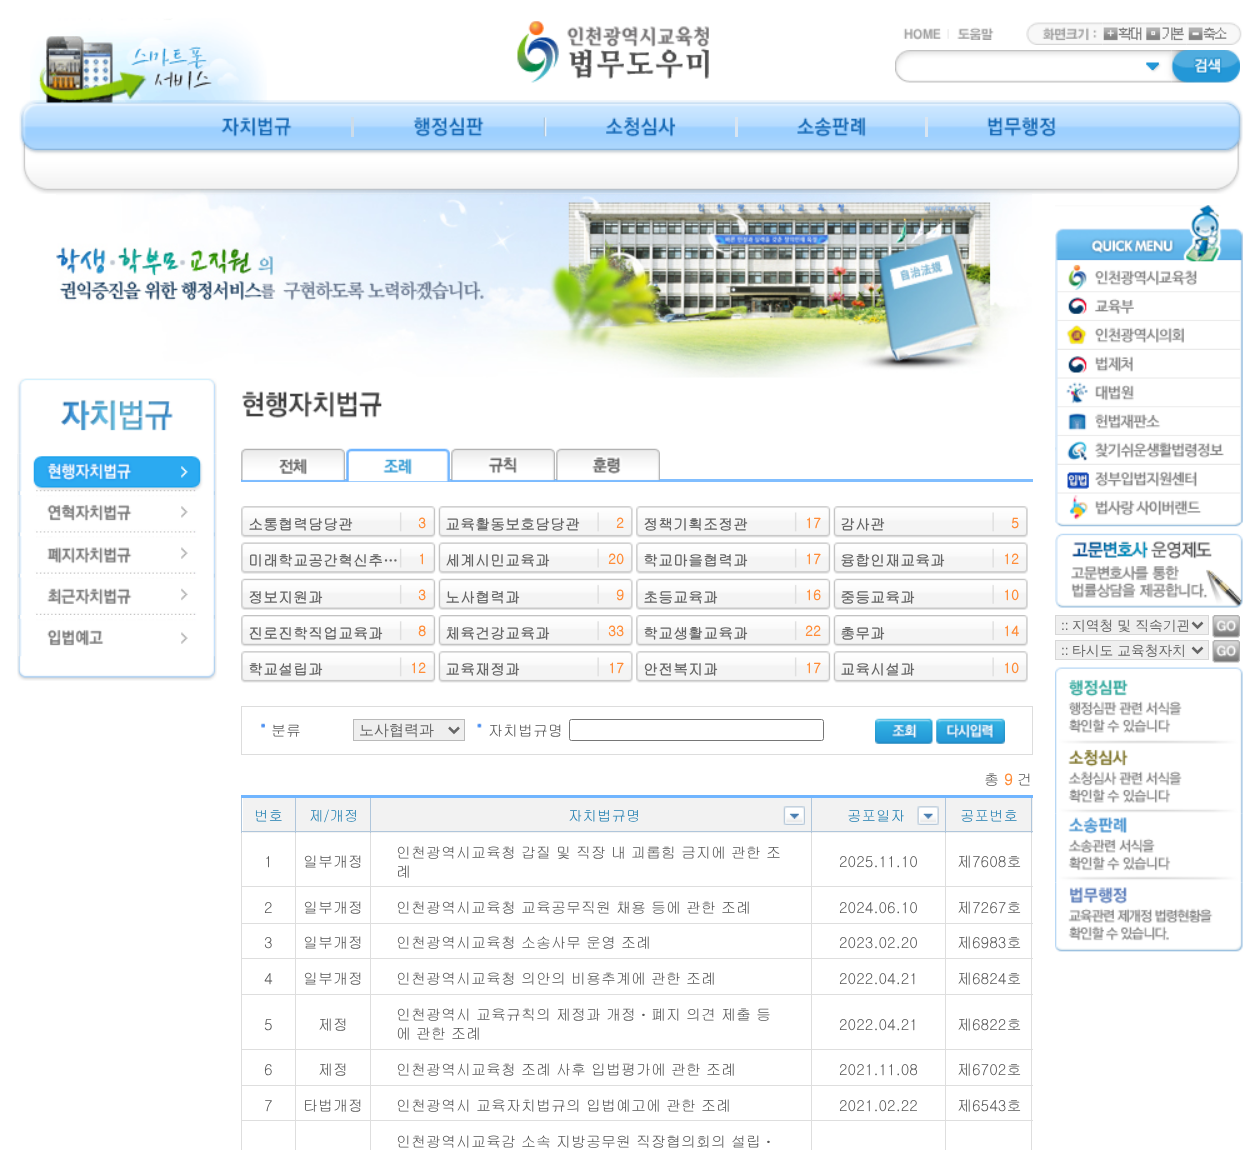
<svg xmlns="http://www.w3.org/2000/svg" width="1259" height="1150">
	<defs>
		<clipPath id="clip1"><rect x="1061" y="616" width="127" height="18" /></clipPath>
	</defs>
	<rect width="100%" height="100%" fill="#FFFFFF" />
	<image x="30" y="18" width="237" height="82" href="assets/img1.png" />
	<image x="517" y="21" width="192" height="62" href="assets/img2.png" />
	<image x="947" y="29" width="2" height="10" href="assets/img3.png" />
	<image x="903" y="28" width="39" height="12" href="assets/img4.png" />
	<image x="957" y="27" width="37" height="13" href="assets/img5.png" />
	<image x="1026" y="22" width="77" height="23" href="assets/img6.png" />
	<image x="1102" y="22" width="43" height="23" href="assets/img7.png" />
	<image x="1145" y="22" width="42" height="23" href="assets/img8.png" />
	<image x="1186" y="22" width="56" height="23" href="assets/img9.png" />
	<image x="895" y="50" width="245" height="33" href="assets/img10.png" />
	<image x="1140" y="50" width="32" height="33" href="assets/img11.png" />
	<image x="1171" y="50" width="69" height="33" href="assets/img12.png" />
	<image x="19" y="100" width="1224" height="94" href="assets/img13.png" />
	<rect x="351" y="117" width="3" height="20" fill="#CCDCEA" />
	<image x="221" y="117" width="71" height="20" href="assets/img14.png" />
	<image x="543" y="117" width="4" height="20" href="assets/img15.png" />
	<image x="413" y="117" width="71" height="20" href="assets/img16.png" />
	<rect x="735" y="117" width="3" height="20" fill="#D9E5F1" />
	<image x="606" y="117" width="70" height="20" href="assets/img17.png" />
	<rect x="925" y="117" width="3" height="20" fill="#D9E5F1" />
	<image x="797" y="117" width="69" height="20" href="assets/img18.png" />
	<image x="987" y="117" width="69" height="20" href="assets/img19.png" />
	<image x="56" y="194" width="976" height="184" href="assets/img20.png" />
	<image x="17" y="453" width="200" height="228" href="assets/img22.png" />
	<image x="17" y="378" width="200" height="76" href="assets/img21.png" />
	<image x="18" y="454" width="197" height="38" href="assets/img23.png" />
	<image x="18" y="495" width="197" height="38" href="assets/img24.png" />
	<image x="18" y="536" width="197" height="38" href="assets/img25.png" />
	<image x="18" y="577" width="197" height="38" href="assets/img26.png" />
	<image x="18" y="618" width="197" height="39" href="assets/img27.png" />
	<image x="242" y="391" width="140" height="27" href="assets/img28.png" />
	<rect x="241" y="479" width="792" height="3" fill="#81BEFF" />
	<image x="241" y="448" width="104" height="34" href="assets/img29.png" />
	<image x="346" y="448" width="104" height="34" href="assets/img30.png" />
	<image x="451" y="448" width="104" height="34" href="assets/img31.png" />
	<image x="556" y="448" width="104" height="34" href="assets/img32.png" />
	<image x="241" y="506" width="195" height="32" href="assets/img33.png" />
	<text x="248" y="530" font-family="Gulim" font-size="15" font-weight="700" fill="#666666">소통협력담당관</text>
	<text x="418" y="528" font-family="Gulim" font-size="13.75" font-weight="700" fill="#FF8C37">3</text>
	<image x="438" y="506" width="195" height="32" href="assets/img34.png" />
	<text x="445" y="530" font-family="Gulim" font-size="15" font-weight="700" fill="#666666">교육활동보호담당관</text>
	<text x="616" y="528" font-family="Gulim" font-size="13.75" font-weight="700" fill="#FF8C37">2</text>
	<image x="636" y="506" width="195" height="32" href="assets/img35.png" />
	<text x="643" y="530" font-family="Gulim" font-size="15" font-weight="700" fill="#666666">정책기획조정관</text>
	<text x="805" y="528" font-family="Gulim" font-size="13.75" font-weight="700" fill="#FF8C37">17</text>
	<image x="833" y="506" width="195" height="32" href="assets/img36.png" />
	<text x="840" y="530" font-family="Gulim" font-size="15" font-weight="700" fill="#666666">감사관</text>
	<text x="1011" y="528" font-family="Gulim" font-size="13.75" font-weight="700" fill="#FF8C37">5</text>
	<image x="241" y="542" width="195" height="32" href="assets/img37.png" />
	<text x="248" y="566" font-family="Gulim" font-size="15" font-weight="700" fill="#666666">미래학교공간혁신추…</text>
	<text x="418" y="564" font-family="Gulim" font-size="13.75" font-weight="700" fill="#FF8C37">1</text>
	<image x="438" y="542" width="195" height="32" href="assets/img38.png" />
	<text x="445" y="566" font-family="Gulim" font-size="15" font-weight="700" fill="#666666">세계시민교육과</text>
	<text x="608" y="564" font-family="Gulim" font-size="13.75" font-weight="700" fill="#FF8C37">20</text>
	<image x="636" y="542" width="195" height="32" href="assets/img39.png" />
	<text x="643" y="566" font-family="Gulim" font-size="15" font-weight="700" fill="#666666">학교마을협력과</text>
	<text x="805" y="564" font-family="Gulim" font-size="13.75" font-weight="700" fill="#FF8C37">17</text>
	<image x="833" y="542" width="195" height="32" href="assets/img40.png" />
	<text x="840" y="566" font-family="Gulim" font-size="15" font-weight="700" fill="#666666">융합인재교육과</text>
	<text x="1003" y="564" font-family="Gulim" font-size="13.75" font-weight="700" fill="#FF8C37">12</text>
	<image x="241" y="578" width="195" height="32" href="assets/img41.png" />
	<text x="248" y="603" font-family="Gulim" font-size="15" font-weight="700" fill="#666666">정보지원과</text>
	<text x="418" y="600" font-family="Gulim" font-size="13.75" font-weight="700" fill="#FF8C37">3</text>
	<image x="438" y="578" width="195" height="32" href="assets/img42.png" />
	<text x="445" y="603" font-family="Gulim" font-size="15" font-weight="700" fill="#666666">노사협력과</text>
	<text x="616" y="600" font-family="Gulim" font-size="13.75" font-weight="700" fill="#FF8C37">9</text>
	<image x="636" y="578" width="195" height="32" href="assets/img43.png" />
	<text x="643" y="603" font-family="Gulim" font-size="15" font-weight="700" fill="#666666">초등교육과</text>
	<text x="805" y="600" font-family="Gulim" font-size="13.75" font-weight="700" fill="#FF8C37">16</text>
	<image x="833" y="578" width="195" height="32" href="assets/img44.png" />
	<text x="840" y="603" font-family="Gulim" font-size="15" font-weight="700" fill="#666666">중등교육과</text>
	<text x="1003" y="600" font-family="Gulim" font-size="13.75" font-weight="700" fill="#FF8C37">10</text>
	<image x="241" y="615" width="195" height="32" href="assets/img45.png" />
	<text x="248" y="639" font-family="Gulim" font-size="15" font-weight="700" fill="#666666">진로진학직업교육과</text>
	<text x="418" y="636" font-family="Gulim" font-size="13.75" font-weight="700" fill="#FF8C37">8</text>
	<image x="438" y="615" width="195" height="32" href="assets/img46.png" />
	<text x="445" y="639" font-family="Gulim" font-size="15" font-weight="700" fill="#666666">체육건강교육과</text>
	<text x="608" y="636" font-family="Gulim" font-size="13.75" font-weight="700" fill="#FF8C37">33</text>
	<image x="636" y="615" width="195" height="32" href="assets/img47.png" />
	<text x="643" y="639" font-family="Gulim" font-size="15" font-weight="700" fill="#666666">학교생활교육과</text>
	<text x="805" y="636" font-family="Gulim" font-size="13.75" font-weight="700" fill="#FF8C37">22</text>
	<image x="833" y="615" width="195" height="32" href="assets/img48.png" />
	<text x="840" y="639" font-family="Gulim" font-size="15" font-weight="700" fill="#666666">총무과</text>
	<text x="1003" y="636" font-family="Gulim" font-size="13.75" font-weight="700" fill="#FF8C37">14</text>
	<image x="241" y="651" width="195" height="32" href="assets/img33.png" />
	<text x="248" y="675" font-family="Gulim" font-size="15" font-weight="700" fill="#666666">학교설립과</text>
	<text x="410" y="673" font-family="Gulim" font-size="13.75" font-weight="700" fill="#FF8C37">12</text>
	<image x="438" y="651" width="195" height="32" href="assets/img34.png" />
	<text x="445" y="675" font-family="Gulim" font-size="15" font-weight="700" fill="#666666">교육재정과</text>
	<text x="608" y="673" font-family="Gulim" font-size="13.75" font-weight="700" fill="#FF8C37">17</text>
	<image x="636" y="651" width="195" height="32" href="assets/img35.png" />
	<text x="643" y="675" font-family="Gulim" font-size="15" font-weight="700" fill="#666666">안전복지과</text>
	<text x="805" y="673" font-family="Gulim" font-size="13.75" font-weight="700" fill="#FF8C37">17</text>
	<image x="833" y="651" width="195" height="32" href="assets/img36.png" />
	<text x="840" y="675" font-family="Gulim" font-size="15" font-weight="700" fill="#666666">교육시설과</text>
	<text x="1003" y="673" font-family="Gulim" font-size="13.75" font-weight="700" fill="#FF8C37">10</text>
	<rect x="241.5" y="706.5" width="791" height="48" fill="none" stroke="#DDDDDD" />
	<image x="261" y="723" width="4" height="5" href="assets/img49.png" />
	<text x="271" y="736" font-family="Gulim" font-size="15" fill="#585858">분류</text>
	<rect x="353.5" y="719.5" width="111" height="21" fill="#EFEFEF" stroke="#BABABA" />
	<path d="M449 727.5L454 732.5L459 727.5" fill="none" stroke="#666666" stroke-width="2.5" />
	<text x="359" y="735" font-family="WenQuanYi Zen Hei" font-size="15" font-weight="500" fill="#666666">노사협력과</text>
	<image x="477" y="723" width="5" height="5" href="assets/img50.png" />
	<text x="488" y="736" font-family="Gulim" font-size="15" fill="#585858">자치법규명</text>
	<rect x="569.5" y="719.5" width="254" height="21" rx="2" fill="none" stroke="#767676" />
	<image x="875" y="718" width="58" height="26" href="assets/img51.png" />
	<image x="936" y="718" width="69" height="26" href="assets/img52.png" />
	<text x="984" y="785" font-family="Gulim" font-size="15" fill="#585858">총</text>
	<text x="1004" y="785" font-family="Gulim" font-size="15" font-weight="700" fill="#FF8C37">9</text>
	<text x="1017" y="785" font-family="Gulim" font-size="15" fill="#585858">건</text>
	<rect x="243" y="798" width="52" height="35" fill="#F2F2F2" />
	<rect x="296" y="798" width="74" height="35" fill="#F2F2F2" />
	<rect x="371" y="798" width="440" height="35" fill="#F2F2F2" />
	<rect x="812" y="798" width="133" height="35" fill="#F2F2F2" />
	<rect x="946" y="798" width="87" height="35" fill="#F2F2F2" />
	<rect x="945" y="886" width="88" height="1" fill="#DEDEDE" />
	<rect x="945" y="923" width="88" height="1" fill="#DEDEDE" />
	<rect x="945" y="958" width="88" height="1" fill="#DEDEDE" />
	<rect x="945" y="994" width="88" height="1" fill="#DEDEDE" />
	<rect x="945" y="1049" width="88" height="1" fill="#DEDEDE" />
	<rect x="945" y="1085" width="88" height="1" fill="#DEDEDE" />
	<rect x="945" y="1120" width="88" height="1" fill="#DEDEDE" />
	<rect x="1031" y="1120" width="1" height="30" fill="#DEDEDE" />
	<rect x="1031" y="1085" width="1" height="36" fill="#DEDEDE" />
	<rect x="1031" y="1049" width="1" height="37" fill="#DEDEDE" />
	<rect x="1031" y="994" width="1" height="56" fill="#DEDEDE" />
	<rect x="1031" y="958" width="1" height="37" fill="#DEDEDE" />
	<rect x="1031" y="923" width="1" height="36" fill="#DEDEDE" />
	<rect x="1031" y="831" width="1" height="93" fill="#DEDEDE" />
	<rect x="1031" y="796" width="1" height="37" fill="#B0C6DB" />
	<rect x="945" y="1120" width="1" height="30" fill="#DEDEDE" />
	<rect x="811" y="1120" width="135" height="1" fill="#DEDEDE" />
	<rect x="945" y="1085" width="1" height="36" fill="#DEDEDE" />
	<rect x="811" y="1085" width="135" height="1" fill="#DEDEDE" />
	<rect x="945" y="1049" width="1" height="37" fill="#DEDEDE" />
	<rect x="811" y="1049" width="135" height="1" fill="#DEDEDE" />
	<rect x="945" y="994" width="1" height="56" fill="#DEDEDE" />
	<rect x="811" y="994" width="135" height="1" fill="#DEDEDE" />
	<rect x="945" y="958" width="1" height="37" fill="#DEDEDE" />
	<rect x="811" y="958" width="135" height="1" fill="#DEDEDE" />
	<rect x="945" y="923" width="1" height="36" fill="#DEDEDE" />
	<rect x="811" y="923" width="135" height="1" fill="#DEDEDE" />
	<rect x="945" y="886" width="1" height="38" fill="#DEDEDE" />
	<rect x="811" y="886" width="135" height="1" fill="#DEDEDE" />
	<rect x="945" y="831" width="1" height="57" fill="#DEDEDE" />
	<rect x="945" y="831" width="88" height="1" fill="#B0C6DB" />
	<rect x="945" y="796" width="1" height="37" fill="#B0C6DB" />
	<rect x="811" y="1120" width="1" height="30" fill="#DEDEDE" />
	<rect x="370" y="1120" width="443" height="1" fill="#DEDEDE" />
	<rect x="811" y="1085" width="1" height="36" fill="#DEDEDE" />
	<rect x="370" y="1085" width="443" height="1" fill="#DEDEDE" />
	<rect x="811" y="1049" width="1" height="37" fill="#DEDEDE" />
	<rect x="370" y="1049" width="443" height="1" fill="#DEDEDE" />
	<rect x="811" y="994" width="1" height="56" fill="#DEDEDE" />
	<rect x="370" y="994" width="443" height="1" fill="#DEDEDE" />
	<rect x="811" y="958" width="1" height="37" fill="#DEDEDE" />
	<rect x="370" y="958" width="443" height="1" fill="#DEDEDE" />
	<rect x="811" y="923" width="1" height="36" fill="#DEDEDE" />
	<rect x="370" y="923" width="443" height="1" fill="#DEDEDE" />
	<rect x="811" y="886" width="1" height="38" fill="#DEDEDE" />
	<rect x="370" y="886" width="443" height="1" fill="#DEDEDE" />
	<rect x="811" y="831" width="1" height="57" fill="#DEDEDE" />
	<rect x="811" y="831" width="135" height="1" fill="#B0C6DB" />
	<rect x="811" y="796" width="1" height="37" fill="#B0C6DB" />
	<rect x="370" y="1120" width="1" height="30" fill="#DEDEDE" />
	<rect x="295" y="1120" width="76" height="1" fill="#DEDEDE" />
	<rect x="370" y="1085" width="1" height="36" fill="#DEDEDE" />
	<rect x="295" y="1085" width="76" height="1" fill="#DEDEDE" />
	<rect x="370" y="1049" width="1" height="37" fill="#DEDEDE" />
	<rect x="295" y="1049" width="76" height="1" fill="#DEDEDE" />
	<rect x="370" y="994" width="1" height="56" fill="#DEDEDE" />
	<rect x="295" y="994" width="76" height="1" fill="#DEDEDE" />
	<rect x="370" y="958" width="1" height="37" fill="#DEDEDE" />
	<rect x="295" y="958" width="76" height="1" fill="#DEDEDE" />
	<rect x="370" y="923" width="1" height="36" fill="#DEDEDE" />
	<rect x="295" y="923" width="76" height="1" fill="#DEDEDE" />
	<rect x="370" y="886" width="1" height="38" fill="#DEDEDE" />
	<rect x="295" y="886" width="76" height="1" fill="#DEDEDE" />
	<rect x="370" y="831" width="1" height="57" fill="#DEDEDE" />
	<rect x="370" y="831" width="443" height="1" fill="#B0C6DB" />
	<rect x="370" y="796" width="1" height="37" fill="#B0C6DB" />
	<rect x="295" y="1120" width="1" height="30" fill="#DEDEDE" />
	<rect x="241" y="1120" width="55" height="1" fill="#DEDEDE" />
	<rect x="295" y="1085" width="1" height="36" fill="#DEDEDE" />
	<rect x="241" y="1085" width="55" height="1" fill="#DEDEDE" />
	<rect x="295" y="1049" width="1" height="37" fill="#DEDEDE" />
	<rect x="241" y="1049" width="55" height="1" fill="#DEDEDE" />
	<rect x="295" y="994" width="1" height="56" fill="#DEDEDE" />
	<rect x="241" y="994" width="55" height="1" fill="#DEDEDE" />
	<rect x="295" y="958" width="1" height="37" fill="#DEDEDE" />
	<rect x="241" y="958" width="55" height="1" fill="#DEDEDE" />
	<rect x="295" y="923" width="1" height="36" fill="#DEDEDE" />
	<rect x="241" y="923" width="55" height="1" fill="#DEDEDE" />
	<rect x="295" y="886" width="1" height="38" fill="#DEDEDE" />
	<rect x="241" y="886" width="55" height="1" fill="#DEDEDE" />
	<rect x="295" y="831" width="1" height="57" fill="#DEDEDE" />
	<rect x="295" y="831" width="76" height="1" fill="#B0C6DB" />
	<rect x="295" y="796" width="1" height="37" fill="#B0C6DB" />
	<rect x="241" y="1120" width="1" height="30" fill="#DEDEDE" />
	<rect x="241" y="1085" width="1" height="36" fill="#DEDEDE" />
	<rect x="241" y="1049" width="1" height="37" fill="#DEDEDE" />
	<rect x="241" y="994" width="1" height="56" fill="#DEDEDE" />
	<rect x="241" y="958" width="1" height="37" fill="#DEDEDE" />
	<rect x="241" y="923" width="1" height="36" fill="#DEDEDE" />
	<rect x="241" y="831" width="1" height="93" fill="#DEDEDE" />
	<rect x="241" y="831" width="55" height="1" fill="#B0C6DB" />
	<rect x="241" y="796" width="1" height="37" fill="#B0C6DB" />
	<rect x="241" y="795" width="792" height="3" fill="#70B5FF" />
	<g font-family="Gulim" font-size="14.5" fill="#2480B2">
		<text x="254" y="821">번호</text>
		<text x="309" y="821">제/개정</text>
		<text x="568" y="821">자치법규명</text>
	</g>
	<image x="783" y="806" width="22" height="19" href="assets/img53.png" />
	<text x="847" y="821" font-family="Gulim" font-size="14.5" fill="#2480B2">공포일자</text>
	<image x="917" y="806" width="22" height="19" href="assets/img54.png" />
	<text x="960" y="821" font-family="Gulim" font-size="14.5" fill="#2480B2">공포번호</text>
	<g font-family="Gulim" font-size="15" fill="#585858">
		<text x="264" y="867">1</text>
		<text x="303" y="867">일부개정</text>
		<text x="396" y="858">인천광역시교육청 갑질 및 직장 내 괴롭힘 금지에 관한 조</text>
		<text x="396" y="877">례</text>
		<text x="839" y="867">2025.11.10</text>
		<text x="957" y="867">제7608호</text>
		<text x="264" y="913">2</text>
		<text x="303" y="913">일부개정</text>
		<text x="396" y="913">인천광역시교육청 교육공무직원 채용 등에 관한 조례</text>
		<text x="839" y="913">2024.06.10</text>
		<text x="957" y="913">제7267호</text>
		<text x="264" y="948">3</text>
		<text x="303" y="948">일부개정</text>
		<text x="396" y="948">인천광역시교육청 소송사무 운영 조례</text>
		<text x="839" y="948">2023.02.20</text>
		<text x="957" y="948">제6983호</text>
		<text x="264" y="984">4</text>
		<text x="303" y="984">일부개정</text>
		<text x="396" y="984">인천광역시교육청 의안의 비용추계에 관한 조례</text>
		<text x="839" y="984">2022.04.21</text>
		<text x="957" y="984">제6824호</text>
		<text x="264" y="1030">5</text>
		<text x="318" y="1030">제정</text>
		<text x="396" y="1020">인천광역시 교육규칙의 제정과 개정ㆍ폐지 의견 제출 등</text>
		<text x="396" y="1039">에 관한 조례</text>
		<text x="839" y="1030">2022.04.21</text>
		<text x="957" y="1030">제6822호</text>
		<text x="264" y="1075">6</text>
		<text x="318" y="1075">제정</text>
		<text x="396" y="1075">인천광역시교육청 조례 사후 입법평가에 관한 조례</text>
		<text x="839" y="1075">2021.11.08</text>
		<text x="957" y="1075">제6702호</text>
		<text x="264" y="1111">7</text>
		<text x="303" y="1111">타법개정</text>
		<text x="396" y="1111">인천광역시 교육자치법규의 입법예고에 관한 조례</text>
		<text x="839" y="1111">2021.02.22</text>
		<text x="957" y="1111">제6543호</text>
		<text x="396" y="1147">인천광역시교육감 소속 지방공무원 직장협의회의 설립ㆍ</text>
	</g>
	<image x="1055" y="227" width="188" height="300" href="assets/img55.png" />
	<image x="1055" y="205" width="188" height="58" href="assets/img56.png" />
	<image x="1057" y="262" width="186" height="31" href="assets/img57.png" />
	<image x="1057" y="292" width="186" height="30" href="assets/img58.png" />
	<image x="1057" y="321" width="186" height="29" href="assets/img59.png" />
	<image x="1057" y="350" width="186" height="29" href="assets/img60.png" />
	<image x="1057" y="378" width="186" height="30" href="assets/img61.png" />
	<image x="1055" y="407" width="188" height="30" href="assets/img62.png" />
	<image x="1055" y="436" width="188" height="29" href="assets/img63.png" />
	<image x="1057" y="465" width="186" height="29" href="assets/img64.png" />
	<image x="1055" y="493" width="188" height="30" href="assets/img65.png" />
	<image x="1055" y="533" width="188" height="75" href="assets/img66.png" />
	<rect x="1055.5" y="615.5" width="153" height="19" fill="#EFEFEF" stroke="#D7D7D7" />
	<path d="M1192.5 622.5L1197.5 627.5L1202.5 622.5" fill="none" stroke="#666666" stroke-width="2.5" />
	<text x="1061" y="630" font-family="Liberation Sans" font-size="13.75" fill="#666666">::</text>
	<g clip-path="url(#clip1)">
		<text x="1072" y="630" font-family="WenQuanYi Zen Hei" font-size="13.75" font-weight="500" fill="#666666">지역청 및 직속기관</text>
	</g>
	<image x="1212" y="615" width="28" height="23" href="assets/img67.png" />
	<rect x="1055.5" y="640.5" width="153" height="19" fill="#EFEFEF" stroke="#D7D7D7" />
	<path d="M1192.5 647.5L1197.5 652.5L1202.5 647.5" fill="none" stroke="#666666" stroke-width="2.5" />
	<text x="1061" y="655" font-family="Liberation Sans" font-size="13.75" fill="#666666">::</text>
	<text x="1072" y="655" font-family="WenQuanYi Zen Hei" font-size="13.75" font-weight="500" fill="#666666">타시도 교육청자치</text>
	<image x="1212" y="640" width="28" height="23" href="assets/img67.png" />
	<image x="1055" y="667" width="188" height="78" href="assets/img68.png" />
	<image x="1055" y="745" width="188" height="69" href="assets/img69.png" />
	<image x="1055" y="813" width="188" height="70" href="assets/img70.png" />
	<image x="1055" y="882" width="188" height="70" href="assets/img71.png" />
</svg>
